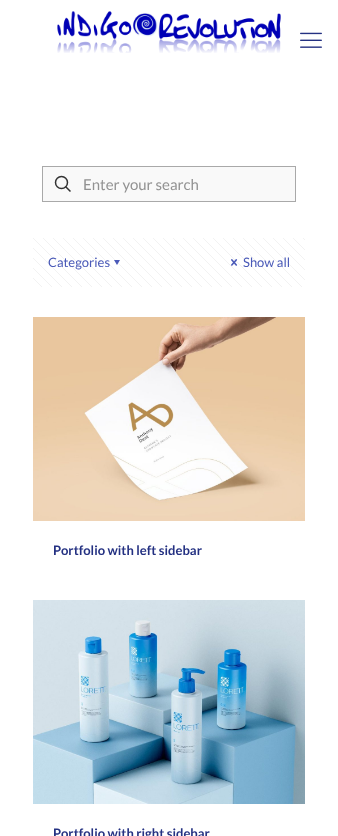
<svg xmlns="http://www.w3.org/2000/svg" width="338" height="836">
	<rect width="100%" height="100%" fill="#FFFFFF" />
	<image x="57" y="11" width="224" height="42" href="assets/img1.png" />
	<image x="300" y="32" width="22" height="16" href="assets/img2.png" />
	<rect x="42.5" y="166.5" width="253" height="35" fill="#F9F9F9" stroke="#A9A9A9" />
	<circle cx="61.5" cy="182.5" r="6" fill="none" stroke="#333333" stroke-width="1.5" />
	<path d="M65.5 186.5L70.5 191.5" fill="none" stroke="#333333" stroke-width="1.5" />
	<text x="83" y="190" font-family="Lato" font-size="15" fill="#929292">Enter your search</text>
	<image x="33" y="238" width="272" height="49" href="assets/img3.png" />
	<text x="48" y="267" font-family="Lato" font-size="13" fill="#4A5AB8">Categories</text>
	<path d="M120 260L117 265L114 260Z" fill="#4A5AB8" />
	<image x="231" y="259" width="7" height="7" href="assets/img4.png" />
	<text x="243" y="267" font-family="Lato" font-size="13" fill="#4A5AB8">Show all</text>
	<image x="33" y="317" width="272" height="204" href="assets/img5.png" />
	<text x="53" y="555" font-family="Lato" font-size="13" font-weight="700" fill="#243182">Portfolio with left sidebar</text>
	<image x="33" y="600" width="272" height="204" href="assets/img6.png" />
	<text x="53" y="838" font-family="Lato" font-size="13" font-weight="700" fill="#243182">Portfolio with right sidebar</text>
</svg>
